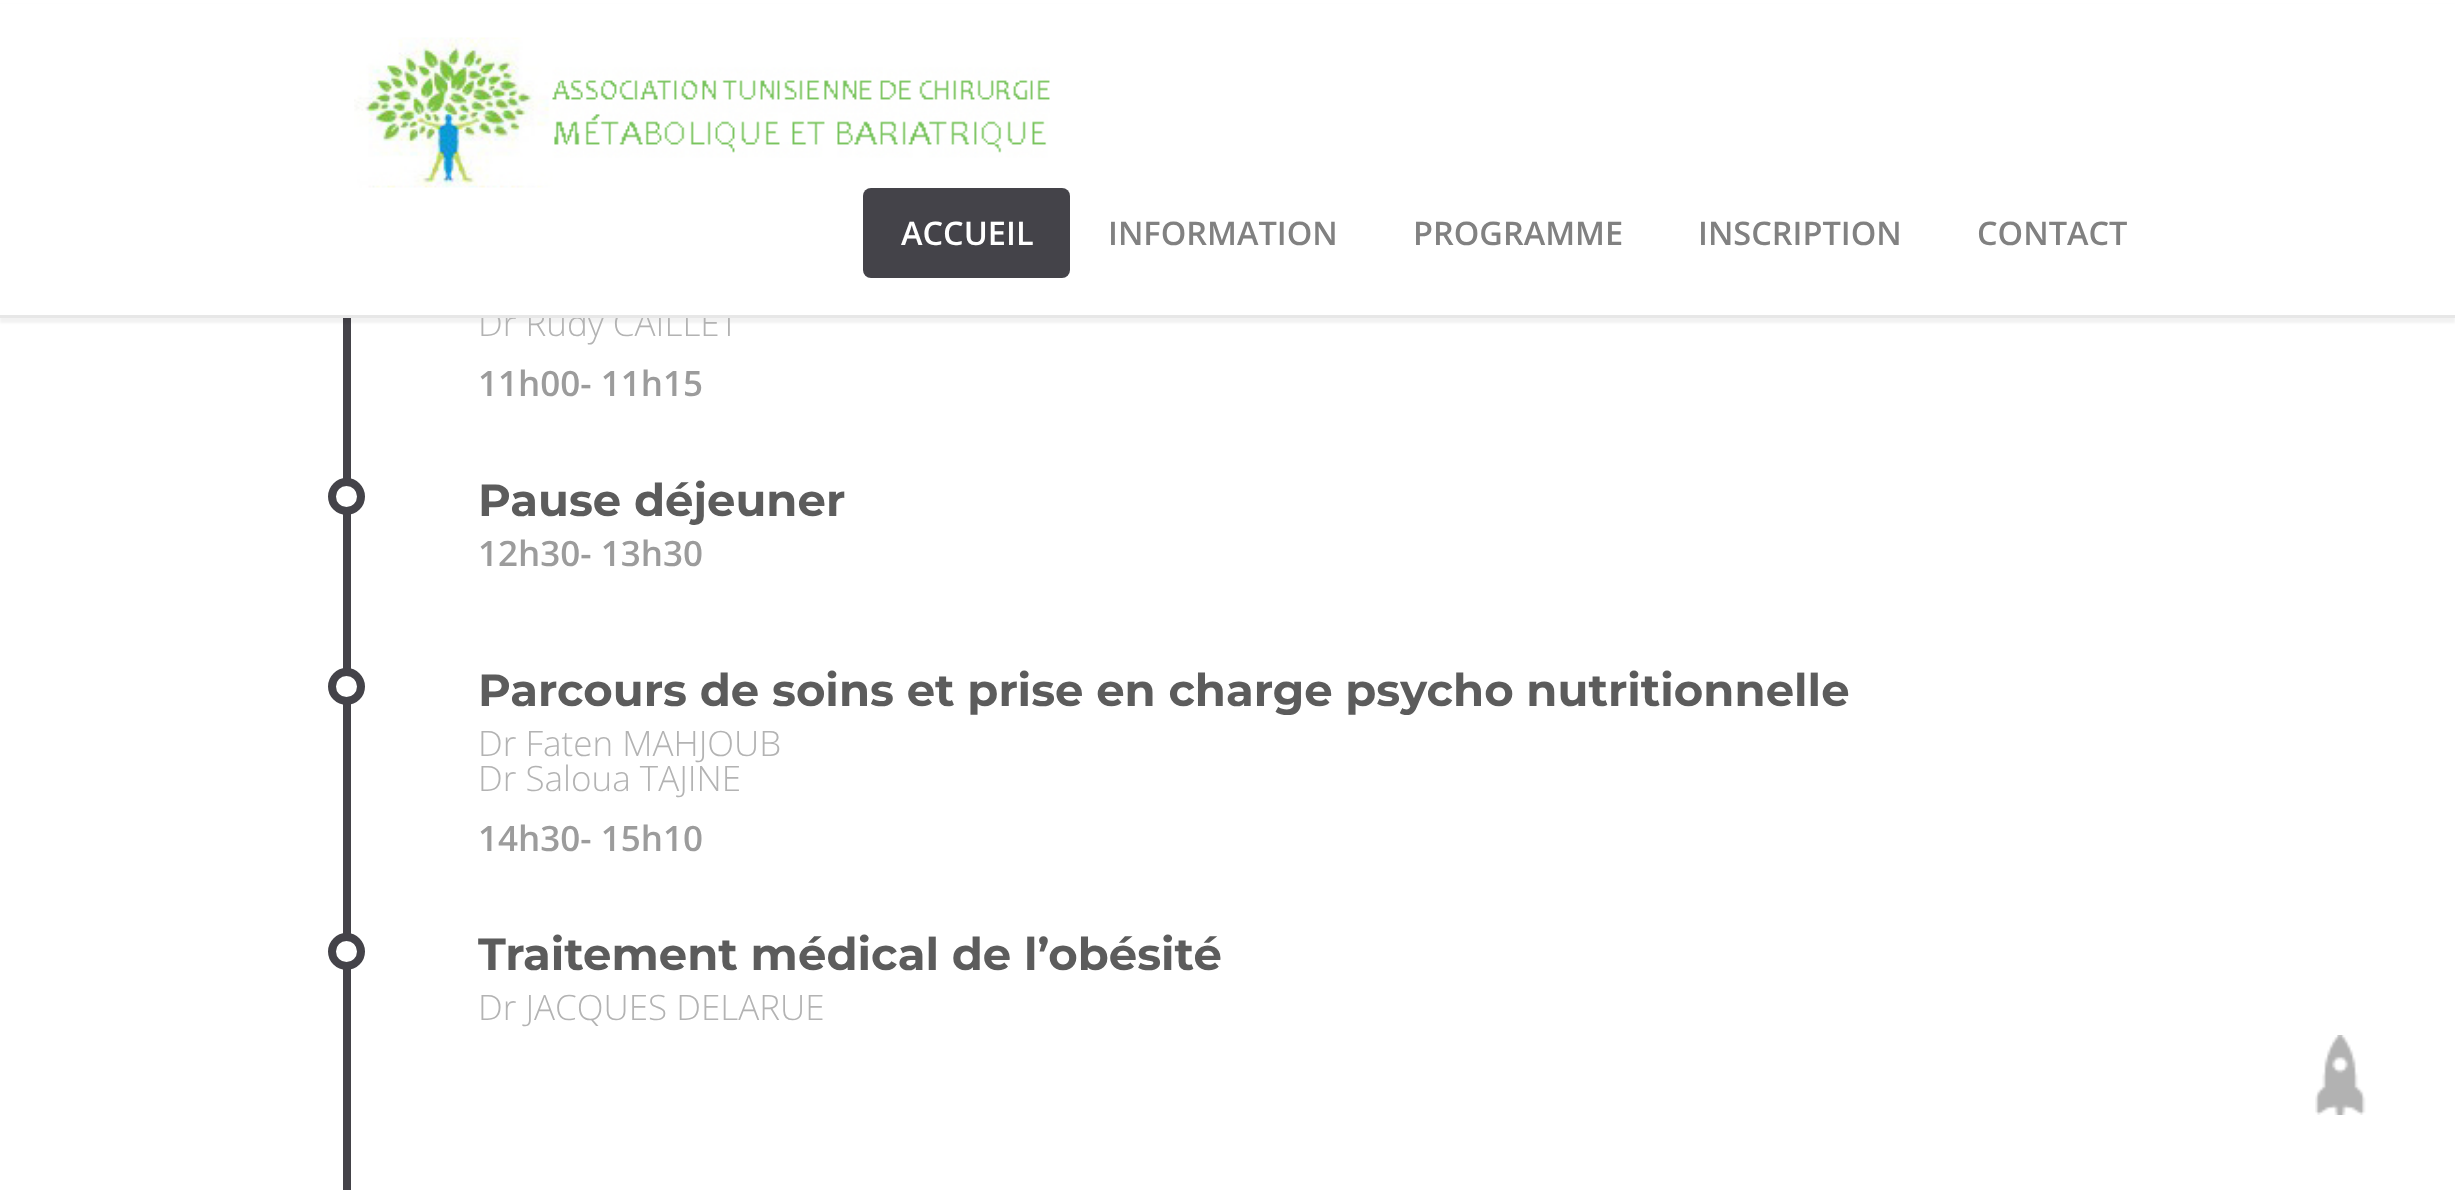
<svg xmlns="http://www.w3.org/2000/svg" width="2455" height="1190">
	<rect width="100%" height="100%" fill="#FFFFFF" />
	<rect x="343" y="318" width="8" height="872" fill="#444349" />
	<rect x="0" y="5" width="2455" height="318" fill="#000000" fill-opacity="0.05" filter="blur(1px)" />
	<text x="478" y="336" font-family="Open Sans" font-size="35" font-weight="300" fill="#B3B3B3">Dr Rudy CAILLET</text>
	<rect x="0" y="4" width="2455" height="311" fill="#FFFFFF" />
	<rect x="0" y="315" width="2455" height="3" fill="#E7E7E7" />
	<image x="354" y="37" width="696" height="151" href="assets/img1.png" />
	<rect x="863" y="188" width="207" height="90" rx="8" fill="#444349" />
	<text x="901" y="245" font-family="Open Sans" font-size="32.5" font-weight="600" fill="#FFFFFF">ACCUEIL</text>
	<g font-family="Open Sans" font-size="32.5" font-weight="600" fill="#818181">
		<text x="1108" y="245">INFORMATION</text>
		<text x="1413" y="245">PROGRAMME</text>
		<text x="1698" y="245">INSCRIPTION</text>
		<text x="1977" y="245">CONTACT</text>
	</g>
	<text x="478" y="396" font-family="Open Sans" font-size="35" font-weight="600" fill="#9C9C9C">11h00- 11h15</text>
	<circle cx="346.5" cy="496.5" r="14.5" fill="#FFFFFF" stroke="#444349" stroke-width="8" />
	<text x="478" y="516" font-family="Montserrat" font-size="45" font-weight="700" fill="#5C5C5C">Pause déjeuner</text>
	<text x="478" y="566" font-family="Open Sans" font-size="35" font-weight="600" fill="#9C9C9C">12h30- 13h30</text>
	<circle cx="346.5" cy="686.5" r="14.5" fill="#FFFFFF" stroke="#444349" stroke-width="8" />
	<text x="478" y="706" font-family="Montserrat" font-size="45" font-weight="700" fill="#5C5C5C">Parcours de soins et prise en charge psycho nutritionnelle</text>
	<g font-family="Open Sans" font-size="35" font-weight="300" fill="#B3B3B3">
		<text x="478" y="756">Dr Faten MAHJOUB</text>
		<text x="478" y="791">Dr Saloua TAJINE</text>
	</g>
	<text x="478" y="851" font-family="Open Sans" font-size="35" font-weight="600" fill="#9C9C9C">14h30- 15h10</text>
	<circle cx="346.5" cy="951.5" r="14.5" fill="#FFFFFF" stroke="#444349" stroke-width="8" />
	<text x="478" y="970" font-family="Montserrat" font-size="45" font-weight="700" fill="#5C5C5C">Traitement médical de l’obésité</text>
	<text x="478" y="1020" font-family="Open Sans" font-size="35" font-weight="300" fill="#B3B3B3">Dr JACQUES DELARUE</text>
	<image x="2315" y="1035" width="51" height="80" href="assets/img2.png" />
</svg>
